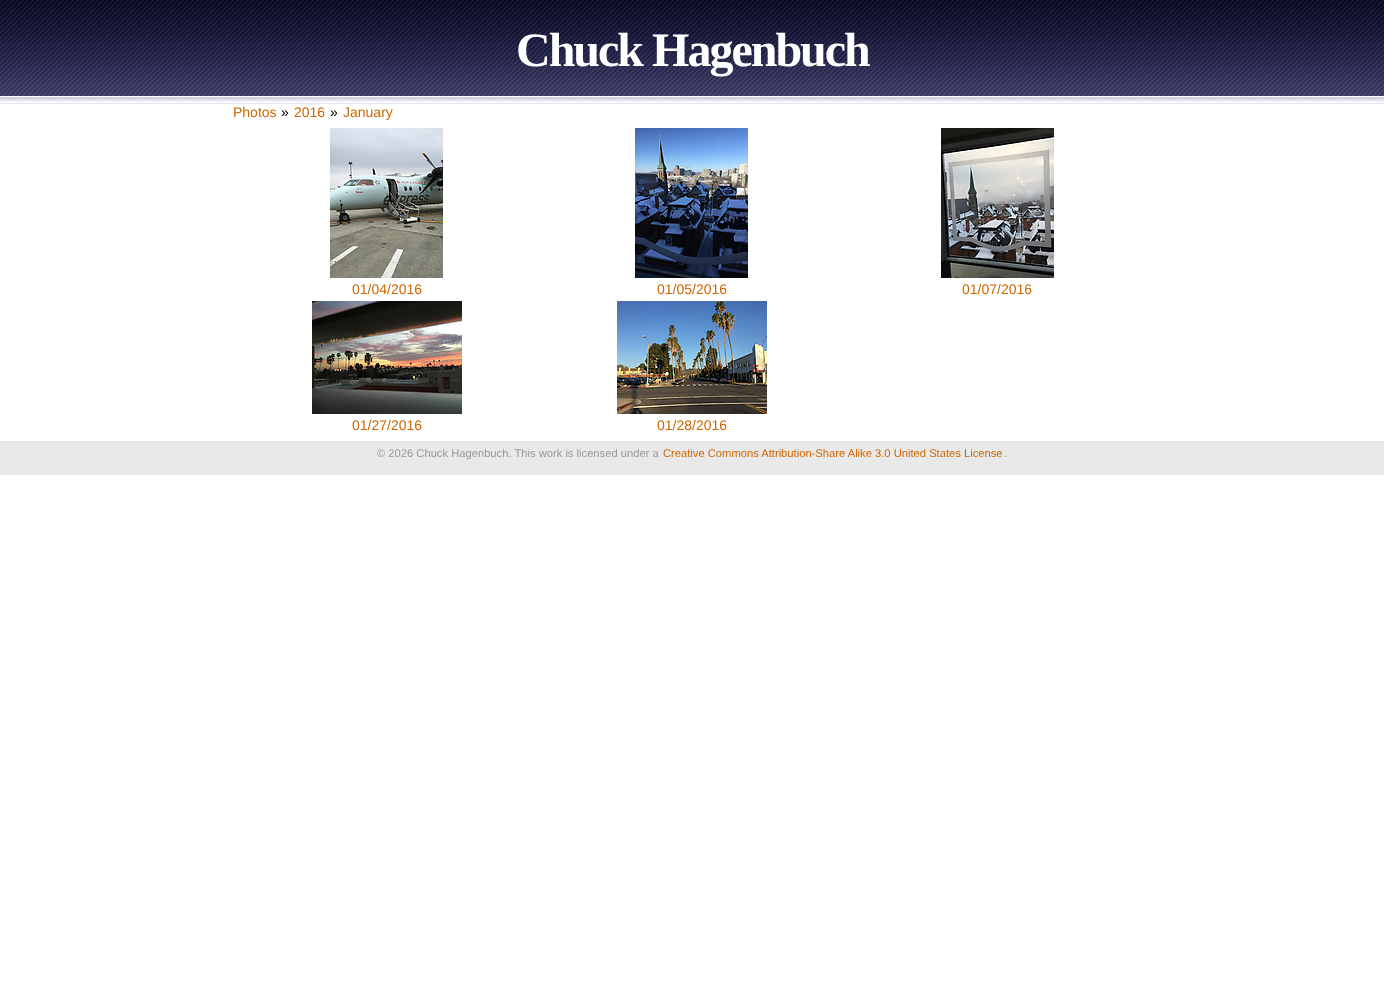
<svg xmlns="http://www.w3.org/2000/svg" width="1384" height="989">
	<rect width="100%" height="100%" fill="#FFFFFF" />
	<image x="0" y="0" width="1384" height="104" href="assets/img1.png" />
	<text x="516" y="66" font-family="Liberation Serif" font-size="48" font-weight="700" letter-spacing="-2" fill="#FFFFFF">Chuck Hagenbuch</text>
	<text x="233" y="117" font-family="Liberation Sans" font-size="14" fill="#CC6600">Photos</text>
	<text x="281" y="117" font-family="Liberation Sans" font-size="14" fill="#000000">»</text>
	<text x="294" y="117" font-family="Liberation Sans" font-size="14" fill="#CC6600">2016</text>
	<text x="330" y="117" font-family="Liberation Sans" font-size="14" fill="#000000">»</text>
	<text x="343" y="117" font-family="Liberation Sans" font-size="14" fill="#CC6600">January</text>
	<image x="330" y="128" width="113" height="150" href="assets/img2.png" />
	<text x="352" y="294" font-family="Liberation Sans" font-size="14" fill="#CC6600">01/04/2016</text>
	<image x="635" y="128" width="113" height="150" href="assets/img3.png" />
	<text x="657" y="294" font-family="Liberation Sans" font-size="14" fill="#CC6600">01/05/2016</text>
	<image x="941" y="128" width="113" height="150" href="assets/img4.png" />
	<text x="962" y="294" font-family="Liberation Sans" font-size="14" fill="#CC6600">01/07/2016</text>
	<image x="312" y="301" width="150" height="113" href="assets/img5.png" />
	<text x="352" y="430" font-family="Liberation Sans" font-size="14" fill="#CC6600">01/27/2016</text>
	<image x="617" y="301" width="150" height="113" href="assets/img6.png" />
	<text x="657" y="430" font-family="Liberation Sans" font-size="14" fill="#CC6600">01/28/2016</text>
	<rect x="0" y="441" width="1384" height="34" fill="#E9E9E9" />
	<text x="377" y="457" font-family="Liberation Sans" font-size="11.2" fill="#999999">© 2026 Chuck Hagenbuch. This work is licensed under a</text>
	<text x="663" y="457" font-family="Liberation Sans" font-size="11.2" fill="#CC6600">Creative Commons Attribution-Share Alike 3.0 United States License</text>
	<text x="1004" y="457" font-family="Liberation Sans" font-size="11.2" fill="#999999">.</text>
</svg>
